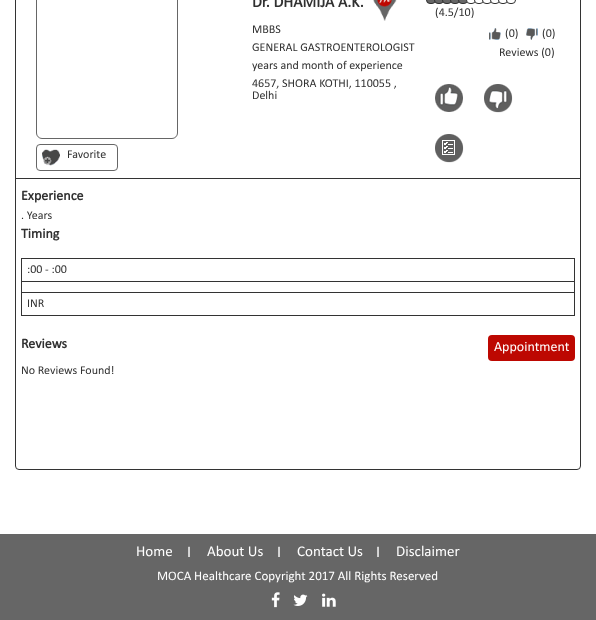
<svg xmlns="http://www.w3.org/2000/svg" width="596" height="620">
	<rect width="100%" height="100%" fill="#FFFFFF" />
	<rect x="15.5" y="-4.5" width="565" height="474" rx="3.5" fill="none" stroke="#333333" />
	<rect x="16" y="178" width="564" height="1" fill="#333333" />
	<text x="252" y="7" font-family="Calibri" font-size="16" font-weight="700" fill="#313131">Dr. DHAMIJA A.K.</text>
	<image x="373" y="0" width="24" height="21" href="assets/img1.png" />
	<g font-family="Calibri" font-size="12" fill="#313131">
		<text x="252" y="33">MBBS</text>
		<text x="252" y="51">GENERAL GASTROENTEROLOGIST</text>
		<text x="252" y="69">years and month of experience</text>
		<text x="252" y="87">4657, SHORA KOTHI, 110055 ,</text>
		<text x="252" y="99">Delhi</text>
	</g>
	<rect x="426.5" y="-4.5" width="9" height="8" rx="3.5" fill="#666666" stroke="#313131" />
	<rect x="434.5" y="-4.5" width="9" height="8" rx="3.5" fill="#666666" stroke="#313131" />
	<rect x="442.5" y="-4.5" width="9" height="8" rx="3.5" fill="#666666" stroke="#313131" />
	<rect x="450.5" y="-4.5" width="9" height="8" rx="3.5" fill="#666666" stroke="#313131" />
	<rect x="458.5" y="-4.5" width="9" height="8" rx="3.5" fill="#666666" stroke="#313131" />
	<rect x="466.5" y="-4.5" width="9" height="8" rx="3.5" fill="#FFFFFF" stroke="#313131" />
	<rect x="474.5" y="-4.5" width="9" height="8" rx="3.5" fill="#FFFFFF" stroke="#313131" />
	<rect x="482.5" y="-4.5" width="9" height="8" rx="3.5" fill="#FFFFFF" stroke="#313131" />
	<rect x="490.5" y="-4.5" width="9" height="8" rx="3.5" fill="#FFFFFF" stroke="#313131" />
	<rect x="498.5" y="-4.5" width="9" height="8" rx="3.5" fill="#FFFFFF" stroke="#313131" />
	<rect x="506.5" y="-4.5" width="9" height="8" rx="3.5" fill="#FFFFFF" stroke="#313131" />
	<text x="435" y="16" font-family="Calibri" font-size="12" fill="#313131">(4.5/10)</text>
	<image x="489" y="28" width="12" height="12" href="assets/img2.png" />
	<text x="505" y="37" font-family="Calibri" font-size="12" fill="#313131">(0)</text>
	<image x="526" y="28" width="12" height="12" href="assets/img3.png" />
	<g font-family="Calibri" font-size="12" fill="#313131">
		<text x="542" y="37">(0)</text>
		<text x="499" y="56">Reviews (0)</text>
	</g>
	<image x="435" y="84" width="28" height="28" href="assets/img4.png" />
	<image x="484" y="84" width="29" height="29" href="assets/img5.png" />
	<image x="435" y="134" width="29" height="29" href="assets/img6.png" />
	<rect x="36.5" y="-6.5" width="141" height="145" rx="5.5" fill="none" stroke="#666666" />
	<image x="42" y="149" width="18" height="17" href="assets/img7.png" />
	<rect x="36.5" y="144.5" width="81" height="26" rx="3.5" fill="none" stroke="#666666" />
	<text x="67" y="158" font-family="Calibri" font-size="12" fill="#313131">Favorite</text>
	<text x="21" y="200" font-family="Calibri" font-size="14" font-weight="700" fill="#313131">Experience</text>
	<text x="21" y="219" font-family="Calibri" font-size="12" fill="#313131">. Years</text>
	<text x="21" y="238" font-family="Calibri" font-size="14" font-weight="700" fill="#313131">Timing</text>
	<rect x="21" y="258" width="554" height="1" fill="#333333" />
	<rect x="21" y="281" width="554" height="1" fill="#333333" />
	<rect x="21" y="292" width="554" height="1" fill="#333333" />
	<rect x="574" y="292" width="1" height="24" fill="#333333" />
	<rect x="574" y="281" width="1" height="12" fill="#333333" />
	<rect x="574" y="258" width="1" height="24" fill="#333333" />
	<rect x="21" y="315" width="554" height="1" fill="#333333" />
	<rect x="21" y="292" width="1" height="24" fill="#333333" />
	<rect x="21" y="281" width="1" height="12" fill="#333333" />
	<rect x="21" y="258" width="1" height="24" fill="#333333" />
	<g font-family="Calibri" font-size="12" fill="#313131">
		<text x="27" y="273">:00 - :00</text>
		<text x="27" y="307">INR</text>
	</g>
	<text x="21" y="348" font-family="Calibri" font-size="14" font-weight="700" fill="#313131">Reviews</text>
	<rect x="488" y="335" width="87" height="26" rx="4" fill="#BD0801" />
	<text x="494" y="351" font-family="Calibri" font-size="14" fill="#FFFFFF">Appointment</text>
	<text x="21" y="374" font-family="Calibri" font-size="12" fill="#313131">No Reviews Found!</text>
	<rect x="0" y="534" width="596" height="86" fill="#666666" />
	<text x="136" y="556" font-family="Calibri" font-size="15" fill="#FFFFFF">Home</text>
	<text x="187" y="557" font-family="Calibri" font-size="16" fill="#FFFFFF">I</text>
	<text x="207" y="556" font-family="Calibri" font-size="15" fill="#FFFFFF">About Us</text>
	<text x="277" y="557" font-family="Calibri" font-size="16" fill="#FFFFFF">I</text>
	<text x="297" y="556" font-family="Calibri" font-size="15" fill="#FFFFFF">Contact Us</text>
	<text x="376" y="557" font-family="Calibri" font-size="16" fill="#FFFFFF">I</text>
	<text x="396" y="556" font-family="Calibri" font-size="15" fill="#FFFFFF">Disclaimer</text>
	<text x="157" y="580" font-family="Calibri" font-size="13" fill="#FFFFFF">MOCA Healthcare Copyright 2017 All Rights Reserved</text>
	<image x="271" y="592" width="9" height="16" href="assets/img8.png" />
	<image x="293" y="594" width="15" height="12" href="assets/img9.png" />
	<image x="322" y="593" width="14" height="14" href="assets/img10.png" />
</svg>
